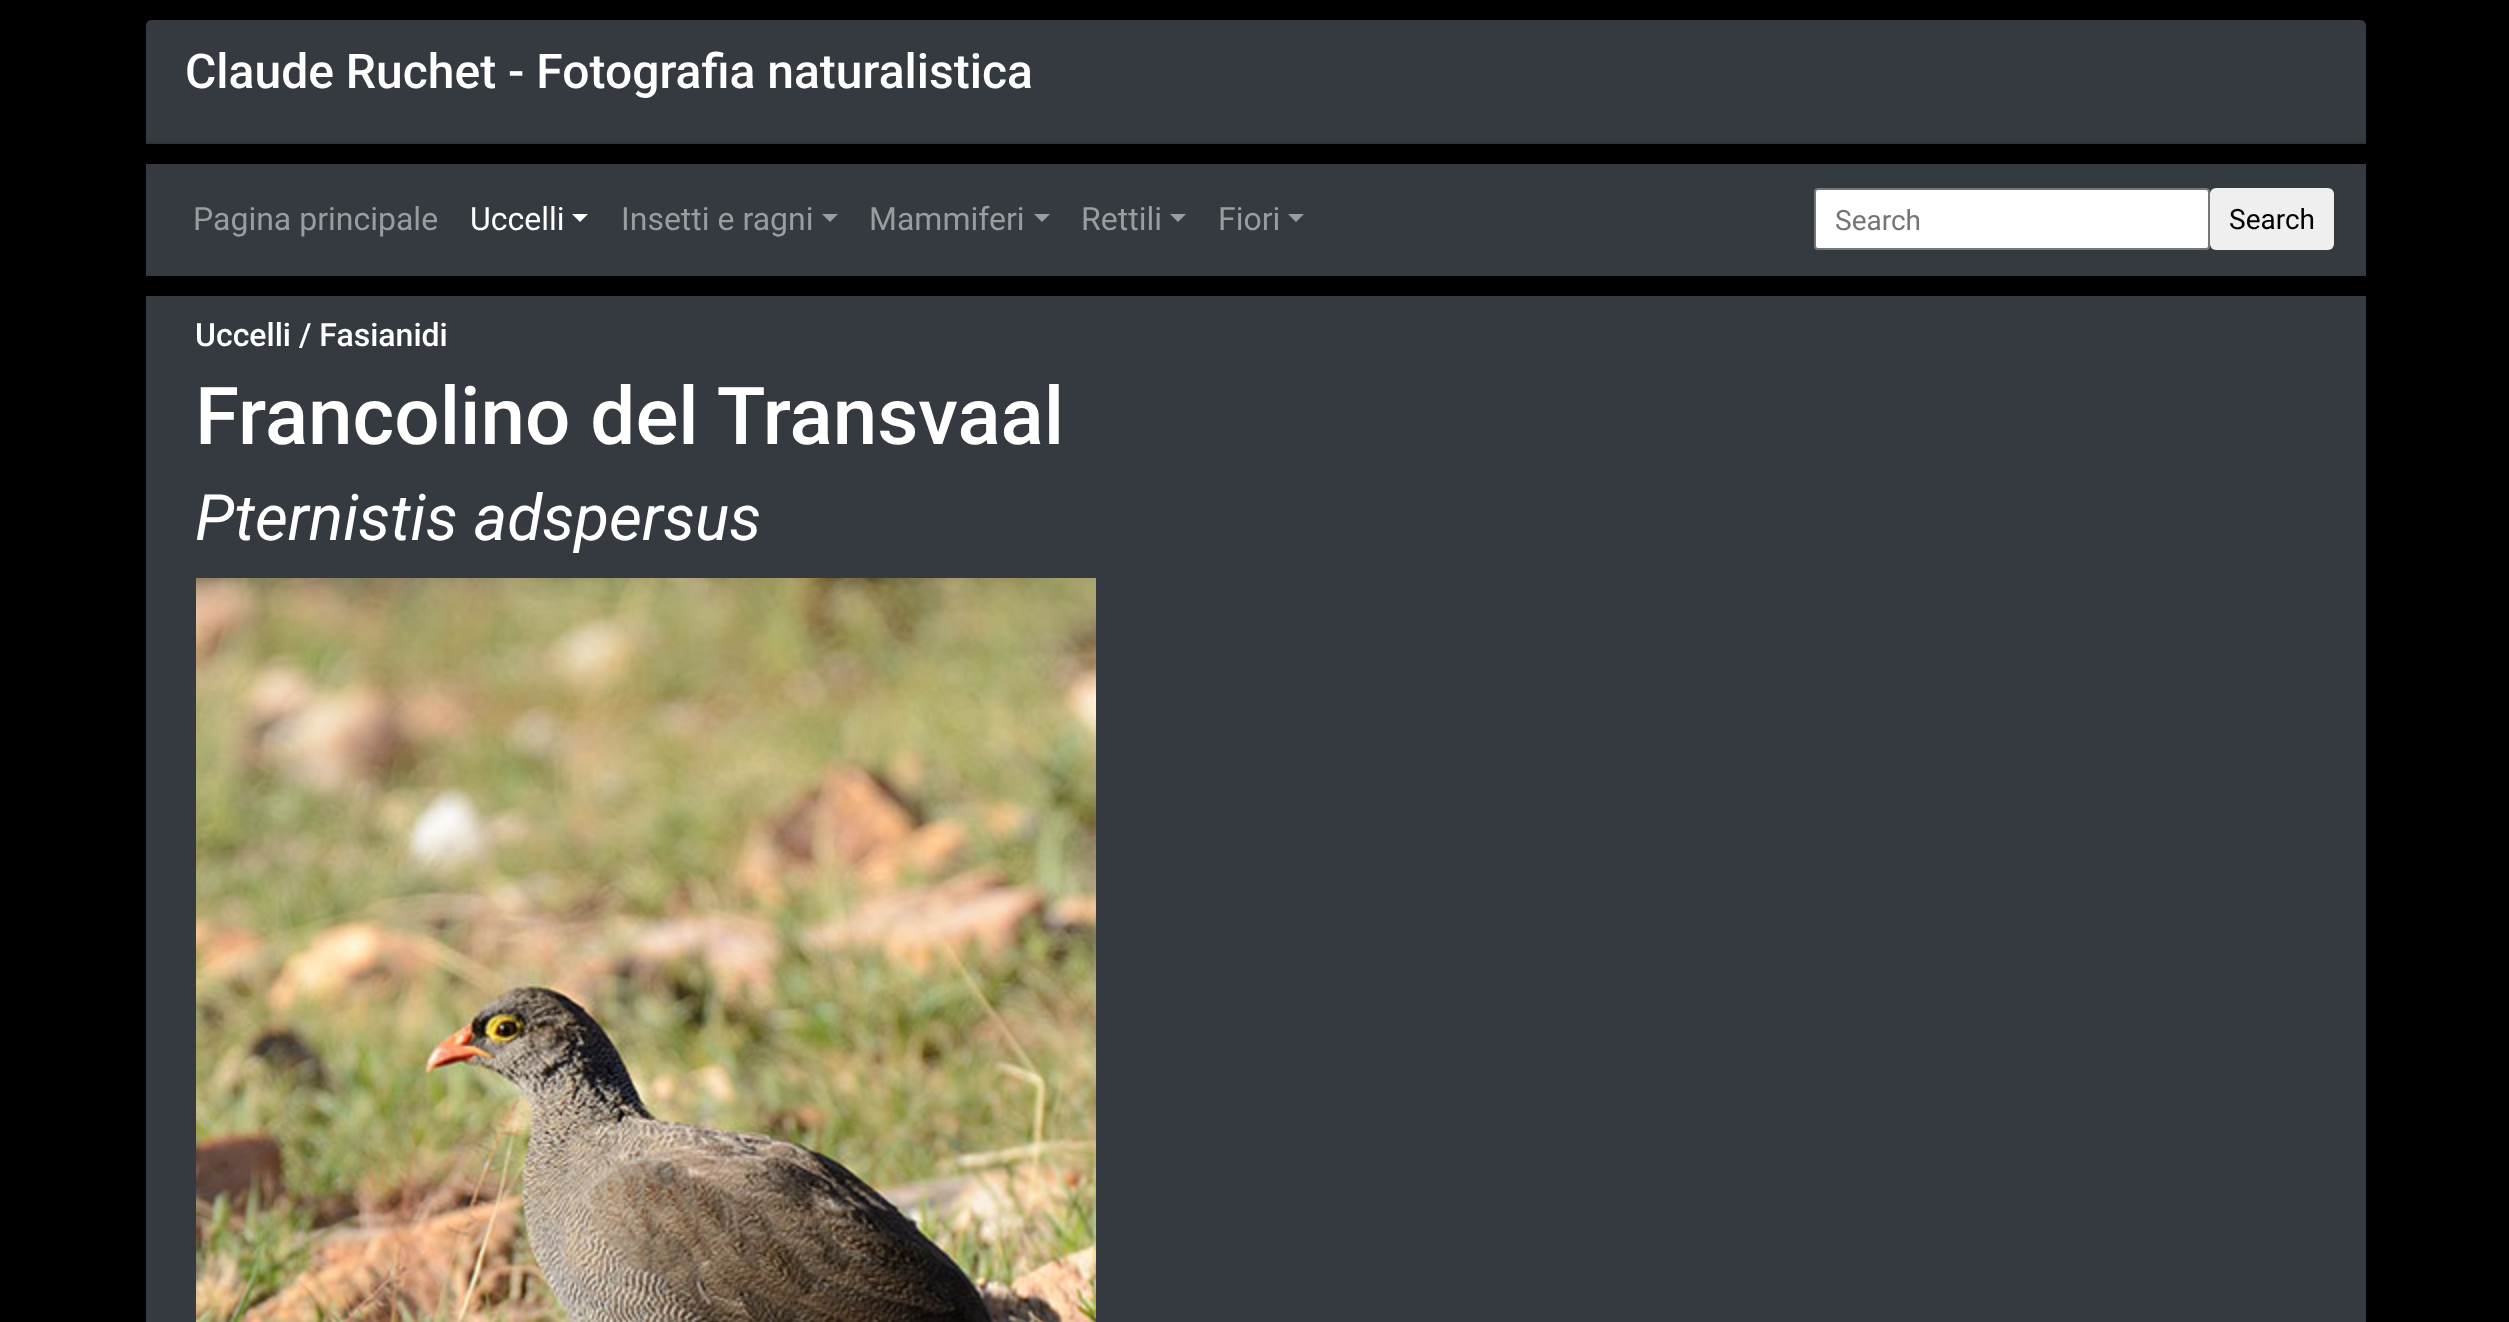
<svg xmlns="http://www.w3.org/2000/svg" width="2509" height="1322">
	<rect width="100%" height="100%" fill="#000000" />
	<path d="M152 20H2360C2363.5 20 2366 22.5 2366 26V144H146V26C146 22.5 148.5 20 152 20Z" fill="#343A40" />
	<rect x="146" y="142" width="2220" height="2" fill="#2E3338" />
	<text x="185" y="88" font-family="Roboto" font-size="48" font-weight="500" fill="#FFFFFF">Claude Ruchet - Fotografia naturalistica</text>
	<rect x="146" y="164" width="2220" height="112" fill="#343A40" />
	<text x="193" y="230" font-family="Roboto" font-size="32" fill="#9A9DA0">Pagina principale</text>
	<text x="470" y="230" font-family="Roboto" font-size="32" fill="#FFFFFF">Uccelli</text>
	<path d="M572 214H588L580 222Z" fill="#FFFFFF" />
	<text x="621" y="230" font-family="Roboto" font-size="32" fill="#9A9DA0">Insetti e ragni</text>
	<path d="M822 214H838L830 222Z" fill="#9A9DA0" />
	<text x="869" y="230" font-family="Roboto" font-size="32" fill="#9A9DA0">Mammiferi</text>
	<path d="M1034 214H1050L1042 222Z" fill="#9A9DA0" />
	<text x="1081" y="230" font-family="Roboto" font-size="32" fill="#9A9DA0">Rettili</text>
	<path d="M1170 214H1186L1178 222Z" fill="#9A9DA0" />
	<text x="1218" y="230" font-family="Roboto" font-size="32" fill="#9A9DA0">Fiori</text>
	<path d="M1288 214H1304L1296 222Z" fill="#9A9DA0" />
	<rect x="1815" y="189" width="394" height="60" rx="3" fill="#FFFFFF" stroke="#767676" stroke-width="2" />
	<text x="1835" y="230" font-family="Roboto" font-size="28" fill="#757575">Search</text>
	<rect x="2210" y="188" width="124" height="62" rx="6" fill="#EFEFEF" />
	<text x="2229" y="229" font-family="Roboto" font-size="28" fill="#000000">Search</text>
	<rect x="146" y="296" width="2220" height="1026" fill="#343A40" />
	<text x="195" y="346" font-family="Roboto" font-size="32" font-weight="500" fill="#FFFFFF">Uccelli / Fasianidi</text>
	<text x="195" y="444" font-family="Roboto" font-size="80" font-weight="500" fill="#FFFFFF">Francolino del Transvaal</text>
	<text x="195" y="540" font-family="Roboto" font-size="64" font-style="italic" fill="#FFFFFF">Pternistis adspersus</text>
	<image x="196" y="578" width="900" height="744" href="assets/img1.png" />
</svg>
